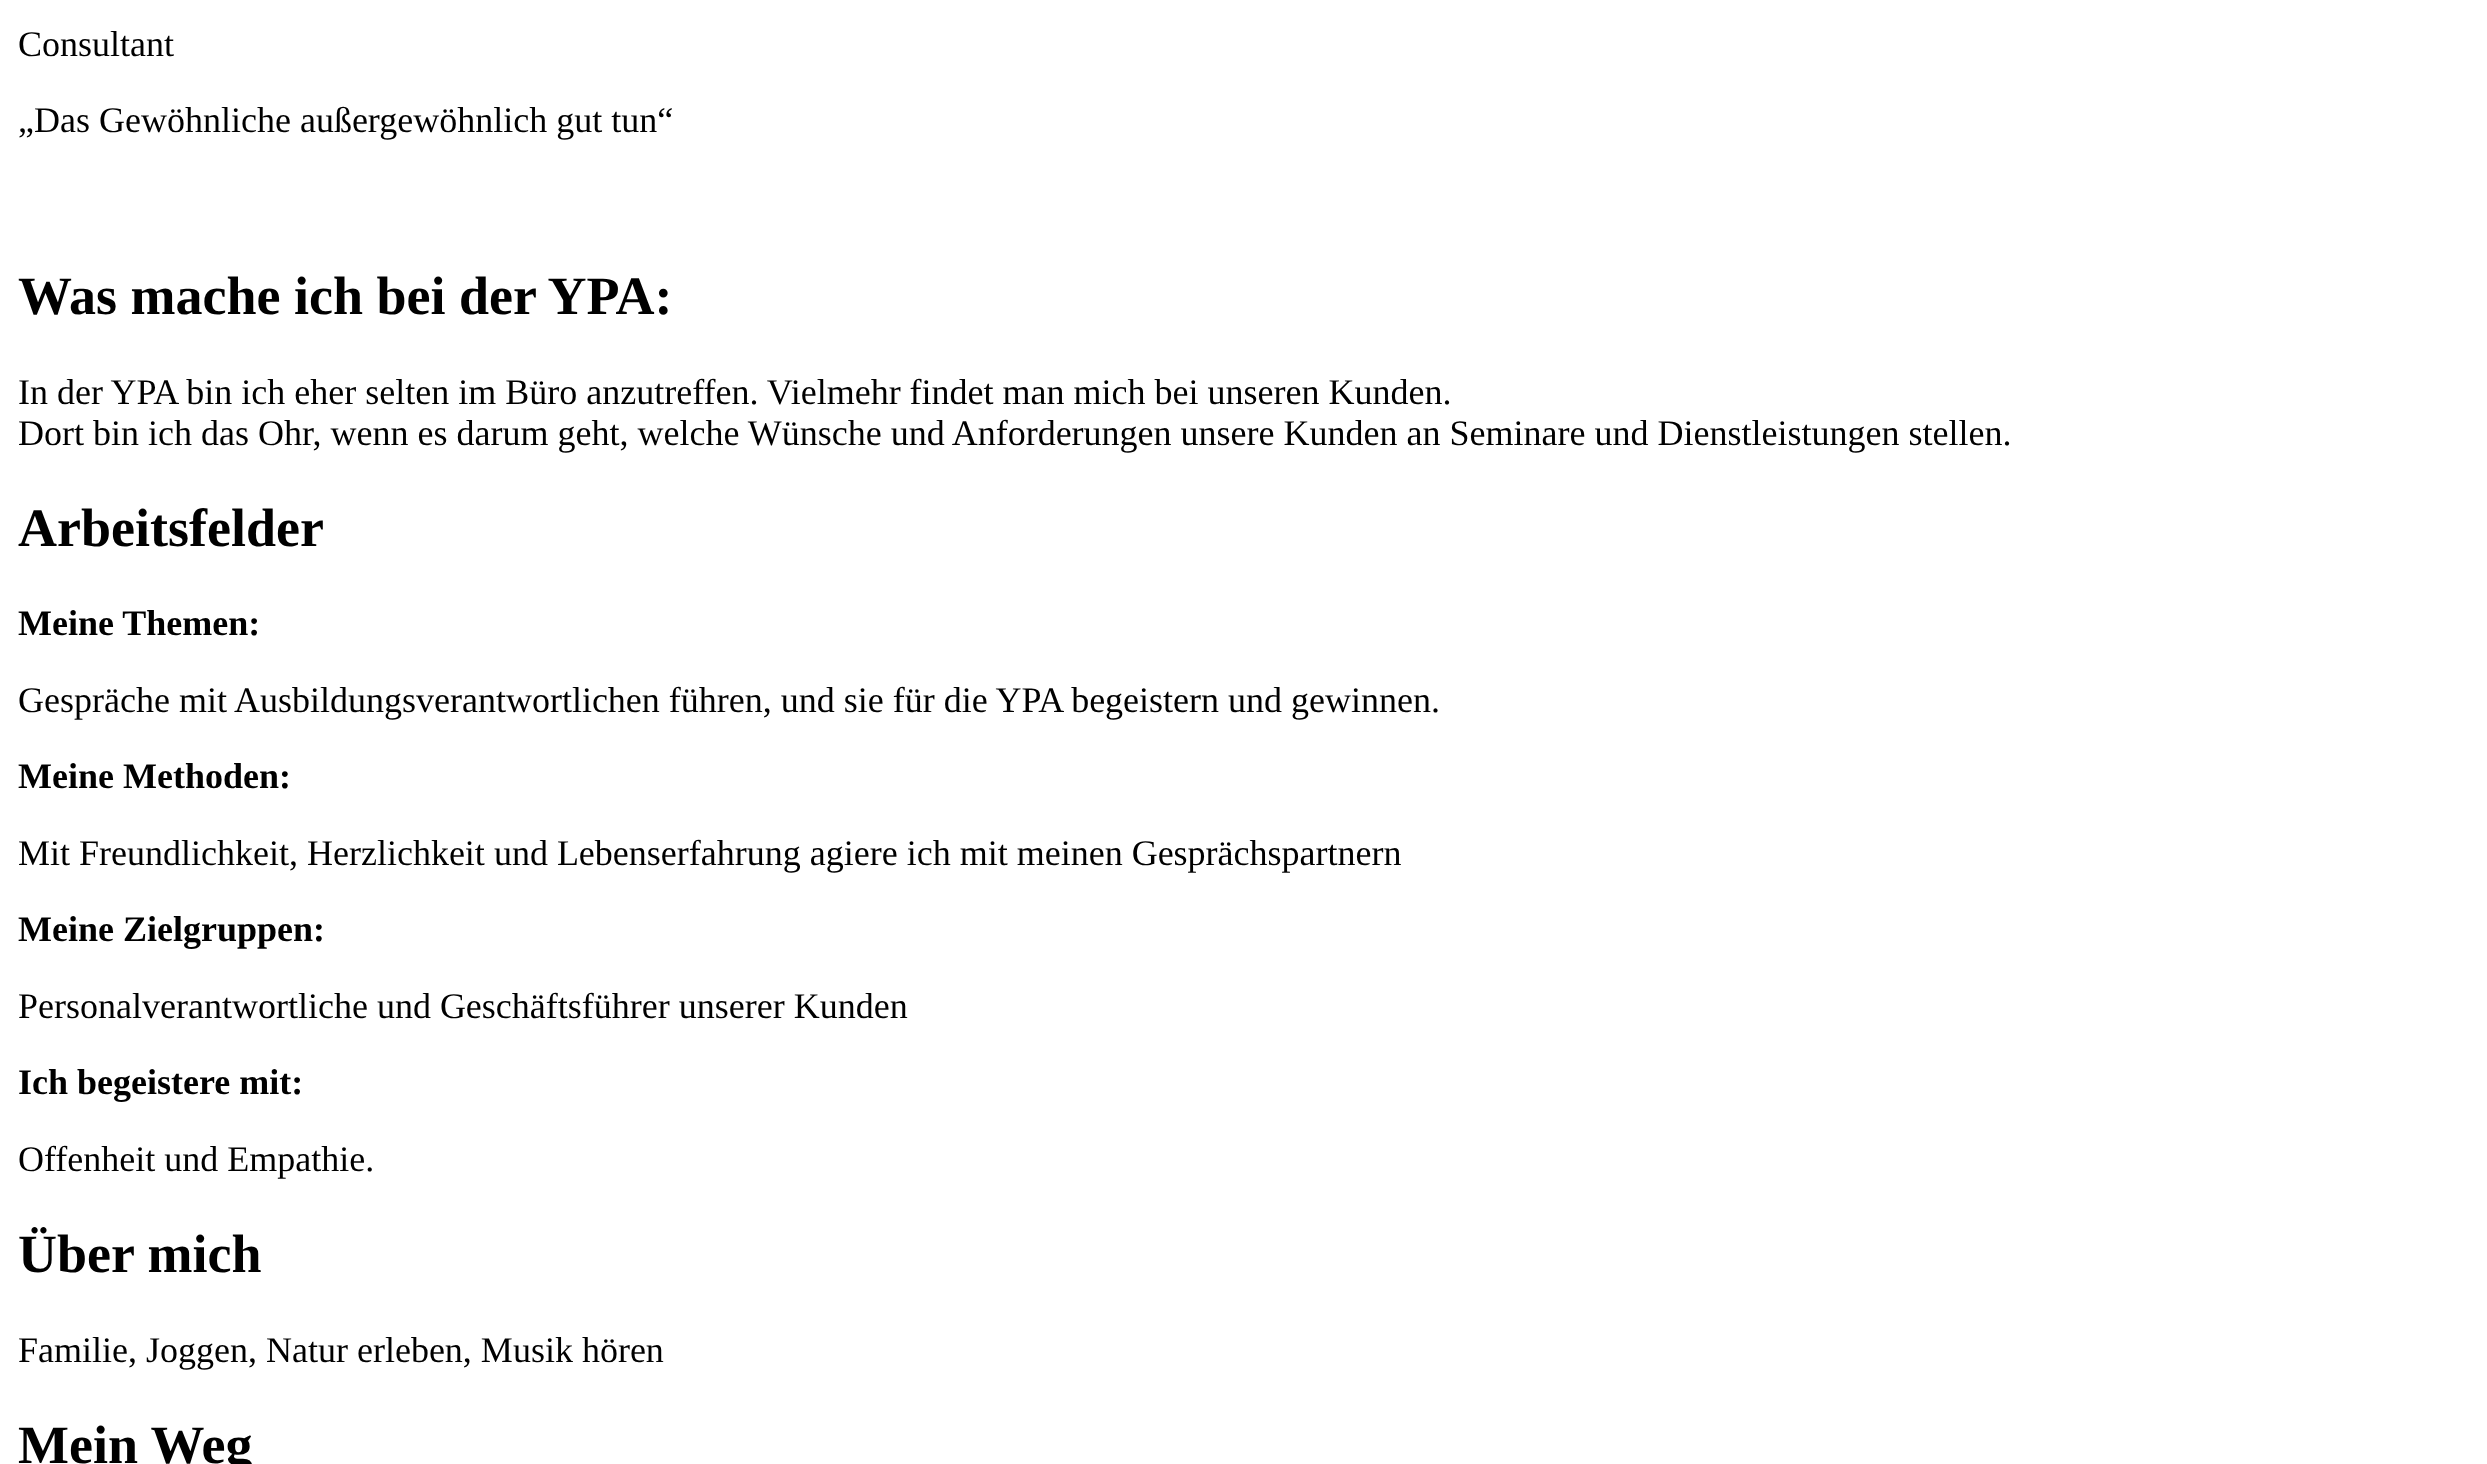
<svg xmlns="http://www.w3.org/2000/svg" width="2487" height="1464">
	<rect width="100%" height="100%" fill="#FFFFFF" />
	<g font-family="Liberation Serif" font-size="36" fill="#000000">
		<text x="18" y="56">Consultant</text>
		<text x="18" y="132">„Das Gewöhnliche außergewöhnlich gut tun“</text>
	</g>
	<text x="18" y="314" font-family="Liberation Serif" font-size="54" font-weight="700" fill="#000000">Was mache ich bei der YPA:</text>
	<g font-family="Liberation Serif" font-size="36" fill="#000000">
		<text x="18" y="404">In der YPA bin ich eher selten im Büro anzutreffen. Vielmehr findet man mich bei unseren Kunden.</text>
		<text x="18" y="445">Dort bin ich das Ohr, wenn es darum geht, welche Wünsche und Anforderungen unsere Kunden an Seminare und Dienstleistungen stellen.</text>
	</g>
	<text x="18" y="546" font-family="Liberation Serif" font-size="54" font-weight="700" fill="#000000">Arbeitsfelder</text>
	<text x="18" y="635" font-family="Liberation Serif" font-size="36" font-weight="700" fill="#000000">Meine Themen:</text>
	<text x="18" y="712" font-family="Liberation Serif" font-size="36" fill="#000000">Gespräche mit Ausbildungsverantwortlichen führen, und sie für die YPA begeistern und gewinnen.</text>
	<text x="18" y="788" font-family="Liberation Serif" font-size="36" font-weight="700" fill="#000000">Meine Methoden:</text>
	<text x="18" y="865" font-family="Liberation Serif" font-size="36" fill="#000000">Mit Freundlichkeit, Herzlichkeit und Lebenserfahrung agiere ich mit meinen Gesprächspartnern</text>
	<text x="18" y="941" font-family="Liberation Serif" font-size="36" font-weight="700" fill="#000000">Meine Zielgruppen:</text>
	<text x="18" y="1018" font-family="Liberation Serif" font-size="36" fill="#000000">Personalverantwortliche und Geschäftsführer unserer Kunden</text>
	<text x="18" y="1094" font-family="Liberation Serif" font-size="36" font-weight="700" fill="#000000">Ich begeistere mit:</text>
	<text x="18" y="1171" font-family="Liberation Serif" font-size="36" fill="#000000">Offenheit und Empathie.</text>
	<text x="18" y="1272" font-family="Liberation Serif" font-size="54" font-weight="700" fill="#000000">Über mich</text>
	<text x="18" y="1362" font-family="Liberation Serif" font-size="36" fill="#000000">Familie, Joggen, Natur erleben, Musik hören</text>
	<text x="18" y="1463" font-family="Liberation Serif" font-size="54" font-weight="700" fill="#000000">Mein Weg</text>
</svg>
